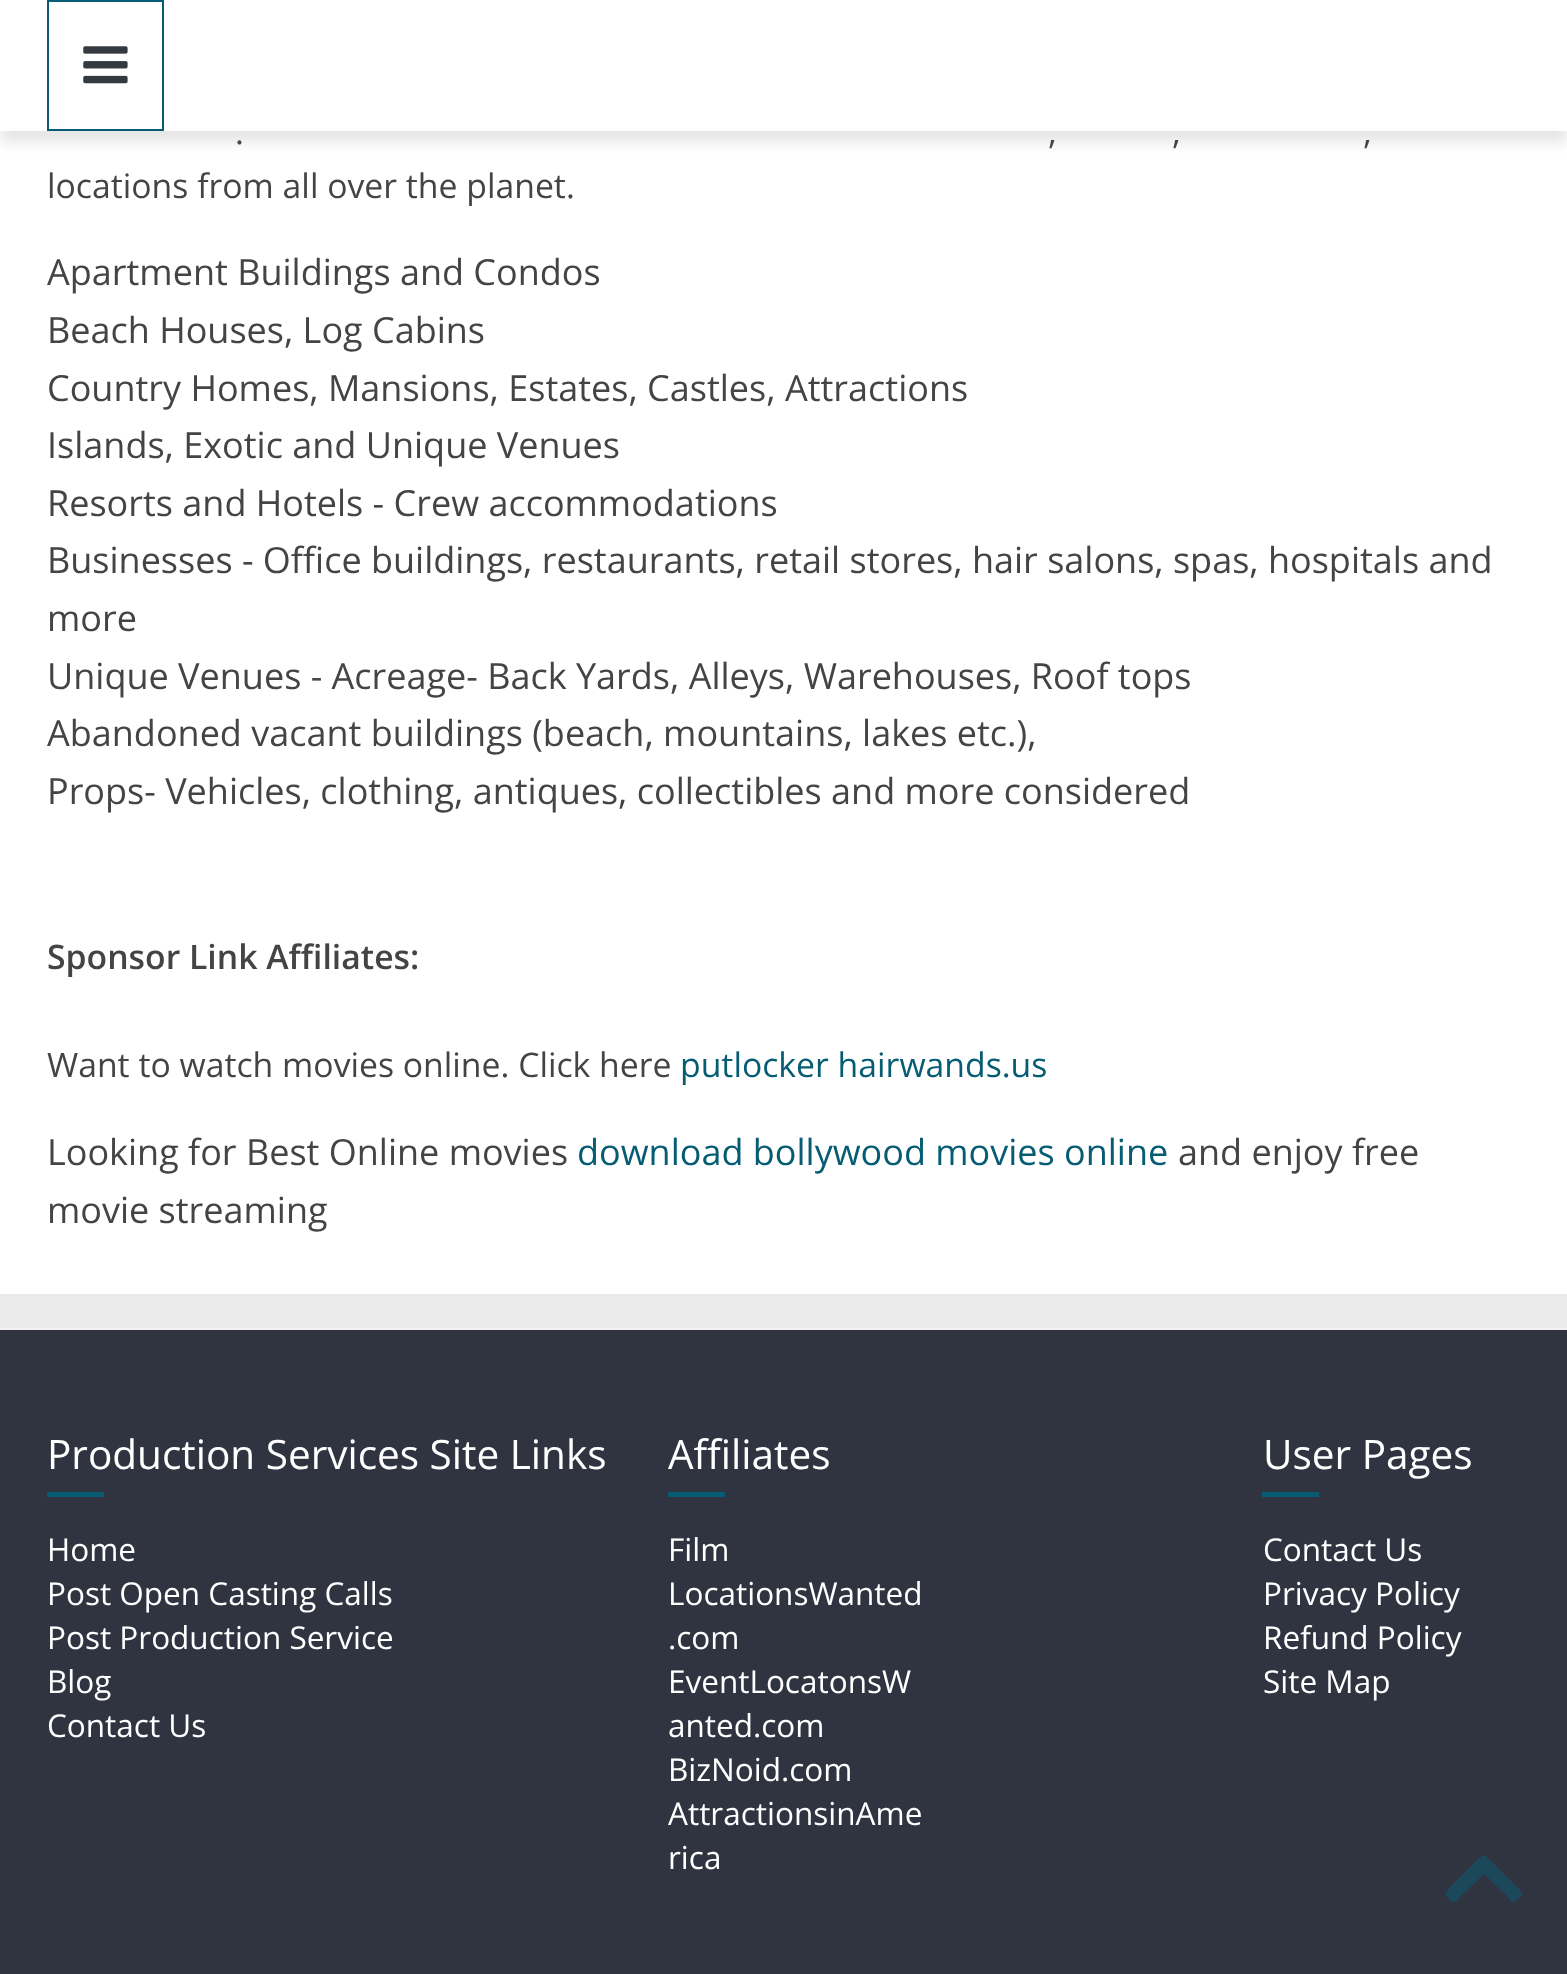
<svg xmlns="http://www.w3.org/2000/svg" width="1567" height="1974">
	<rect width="100%" height="100%" fill="#EAEAEA" />
	<rect x="0" y="131" width="1567" height="1163" fill="#FFFFFF" />
	<rect x="0" y="11" width="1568" height="131" fill="#000000" fill-opacity="0.1" filter="blur(7px)" />
	<rect x="0" y="0" width="1567" height="131" fill="#FFFFFF" />
	<rect x="48" y="1" width="115" height="129" fill="none" stroke="#065C73" stroke-width="2" />
	<image x="83" y="46" width="45" height="38" href="assets/img1.png" />
	<g font-family="Open Sans" font-size="33.75" fill="#444444">
		<text x="235" y="144">.</text>
		<text x="1048" y="144">,</text>
		<text x="1172" y="144">,</text>
		<text x="1363" y="144">,</text>
		<text x="47" y="198">locations from all over the planet.</text>
	</g>
	<g font-family="Open Sans" font-size="36" fill="#444444">
		<text x="47" y="285">Apartment Buildings and Condos</text>
		<text x="47" y="343">Beach Houses, Log Cabins</text>
		<text x="47" y="401">Country Homes, Mansions, Estates, Castles, Attractions</text>
		<text x="47" y="458">Islands, Exotic and Unique Venues</text>
		<text x="47" y="516">Resorts and Hotels - Crew accommodations</text>
		<text x="47" y="573">Businesses - Office buildings, restaurants, retail stores, hair salons, spas, hospitals and</text>
		<text x="47" y="631">more</text>
		<text x="47" y="689">Unique Venues - Acreage- Back Yards, Alleys, Warehouses, Roof tops</text>
		<text x="47" y="746">Abandoned vacant buildings (beach, mountains, lakes etc.),</text>
		<text x="47" y="804">Props- Vehicles, clothing, antiques, collectibles and more considered</text>
	</g>
	<text x="47" y="969" font-family="Open Sans" font-size="33.75" font-weight="600" fill="#444444">Sponsor Link Affiliates:</text>
	<text x="47" y="1077" font-family="Open Sans" font-size="33.75" fill="#444444">Want to watch movies online. Click here</text>
	<text x="680" y="1077" font-family="Open Sans" font-size="33.75" fill="#065C73">putlocker hairwands.us</text>
	<text x="47" y="1165" font-family="Open Sans" font-size="36" fill="#444444">Looking for Best Online movies</text>
	<text x="577" y="1165" font-family="Open Sans" font-size="36" fill="#065C73">download bollywood movies online</text>
	<g font-family="Open Sans" font-size="36" fill="#444444">
		<text x="1178" y="1165">and enjoy free</text>
		<text x="47" y="1223">movie streaming</text>
	</g>
	<rect x="0" y="1330" width="1567" height="644" fill="#303440" />
	<rect x="0" y="1328" width="1567" height="2" fill="#F2F2F2" />
	<text x="47" y="1469" font-family="Open Sans" font-size="40.5" fill="#FFFFFF">Production Services Site Links</text>
	<rect x="47" y="1492" width="57" height="5" fill="#065C73" />
	<g font-family="Open Sans" font-size="31.5" fill="#FFFFFF">
		<text x="47" y="1561">Home</text>
		<text x="47" y="1605">Post Open Casting Calls</text>
		<text x="47" y="1649">Post Production Service</text>
		<text x="47" y="1693">Blog</text>
		<text x="47" y="1737">Contact Us</text>
	</g>
	<text x="668" y="1469" font-family="Open Sans" font-size="40.5" fill="#FFFFFF">Affiliates</text>
	<rect x="668" y="1492" width="57" height="5" fill="#065C73" />
	<g font-family="Open Sans" font-size="31.5" fill="#FFFFFF">
		<text x="668" y="1561">Film</text>
		<text x="668" y="1605">LocationsWanted</text>
		<text x="668" y="1649">.com</text>
		<text x="668" y="1693">EventLocatonsW</text>
		<text x="668" y="1737">anted.com</text>
		<text x="668" y="1781">BizNoid.com</text>
		<text x="668" y="1825">AttractionsinAme</text>
		<text x="668" y="1869">rica</text>
	</g>
	<text x="1263" y="1469" font-family="Open Sans" font-size="40.5" fill="#FFFFFF">User Pages</text>
	<rect x="1262" y="1492" width="57" height="5" fill="#065C73" />
	<g font-family="Open Sans" font-size="31.5" fill="#FFFFFF">
		<text x="1263" y="1561">Contact Us</text>
		<text x="1263" y="1605">Privacy Policy</text>
		<text x="1263" y="1649">Refund Policy</text>
		<text x="1263" y="1693">Site Map</text>
	</g>
	<path d="M1487 1857L1521 1891C1524 1894 1521 1897 1518 1899C1513 1905 1511 1901 1507 1896L1484 1874L1461 1896C1459 1898 1456 1903 1453 1902C1451 1901 1449 1900 1448 1898C1442 1893 1448 1890 1452 1885L1475 1862C1477 1860 1483 1852 1487 1857Z" fill="#1B485A" />
</svg>
